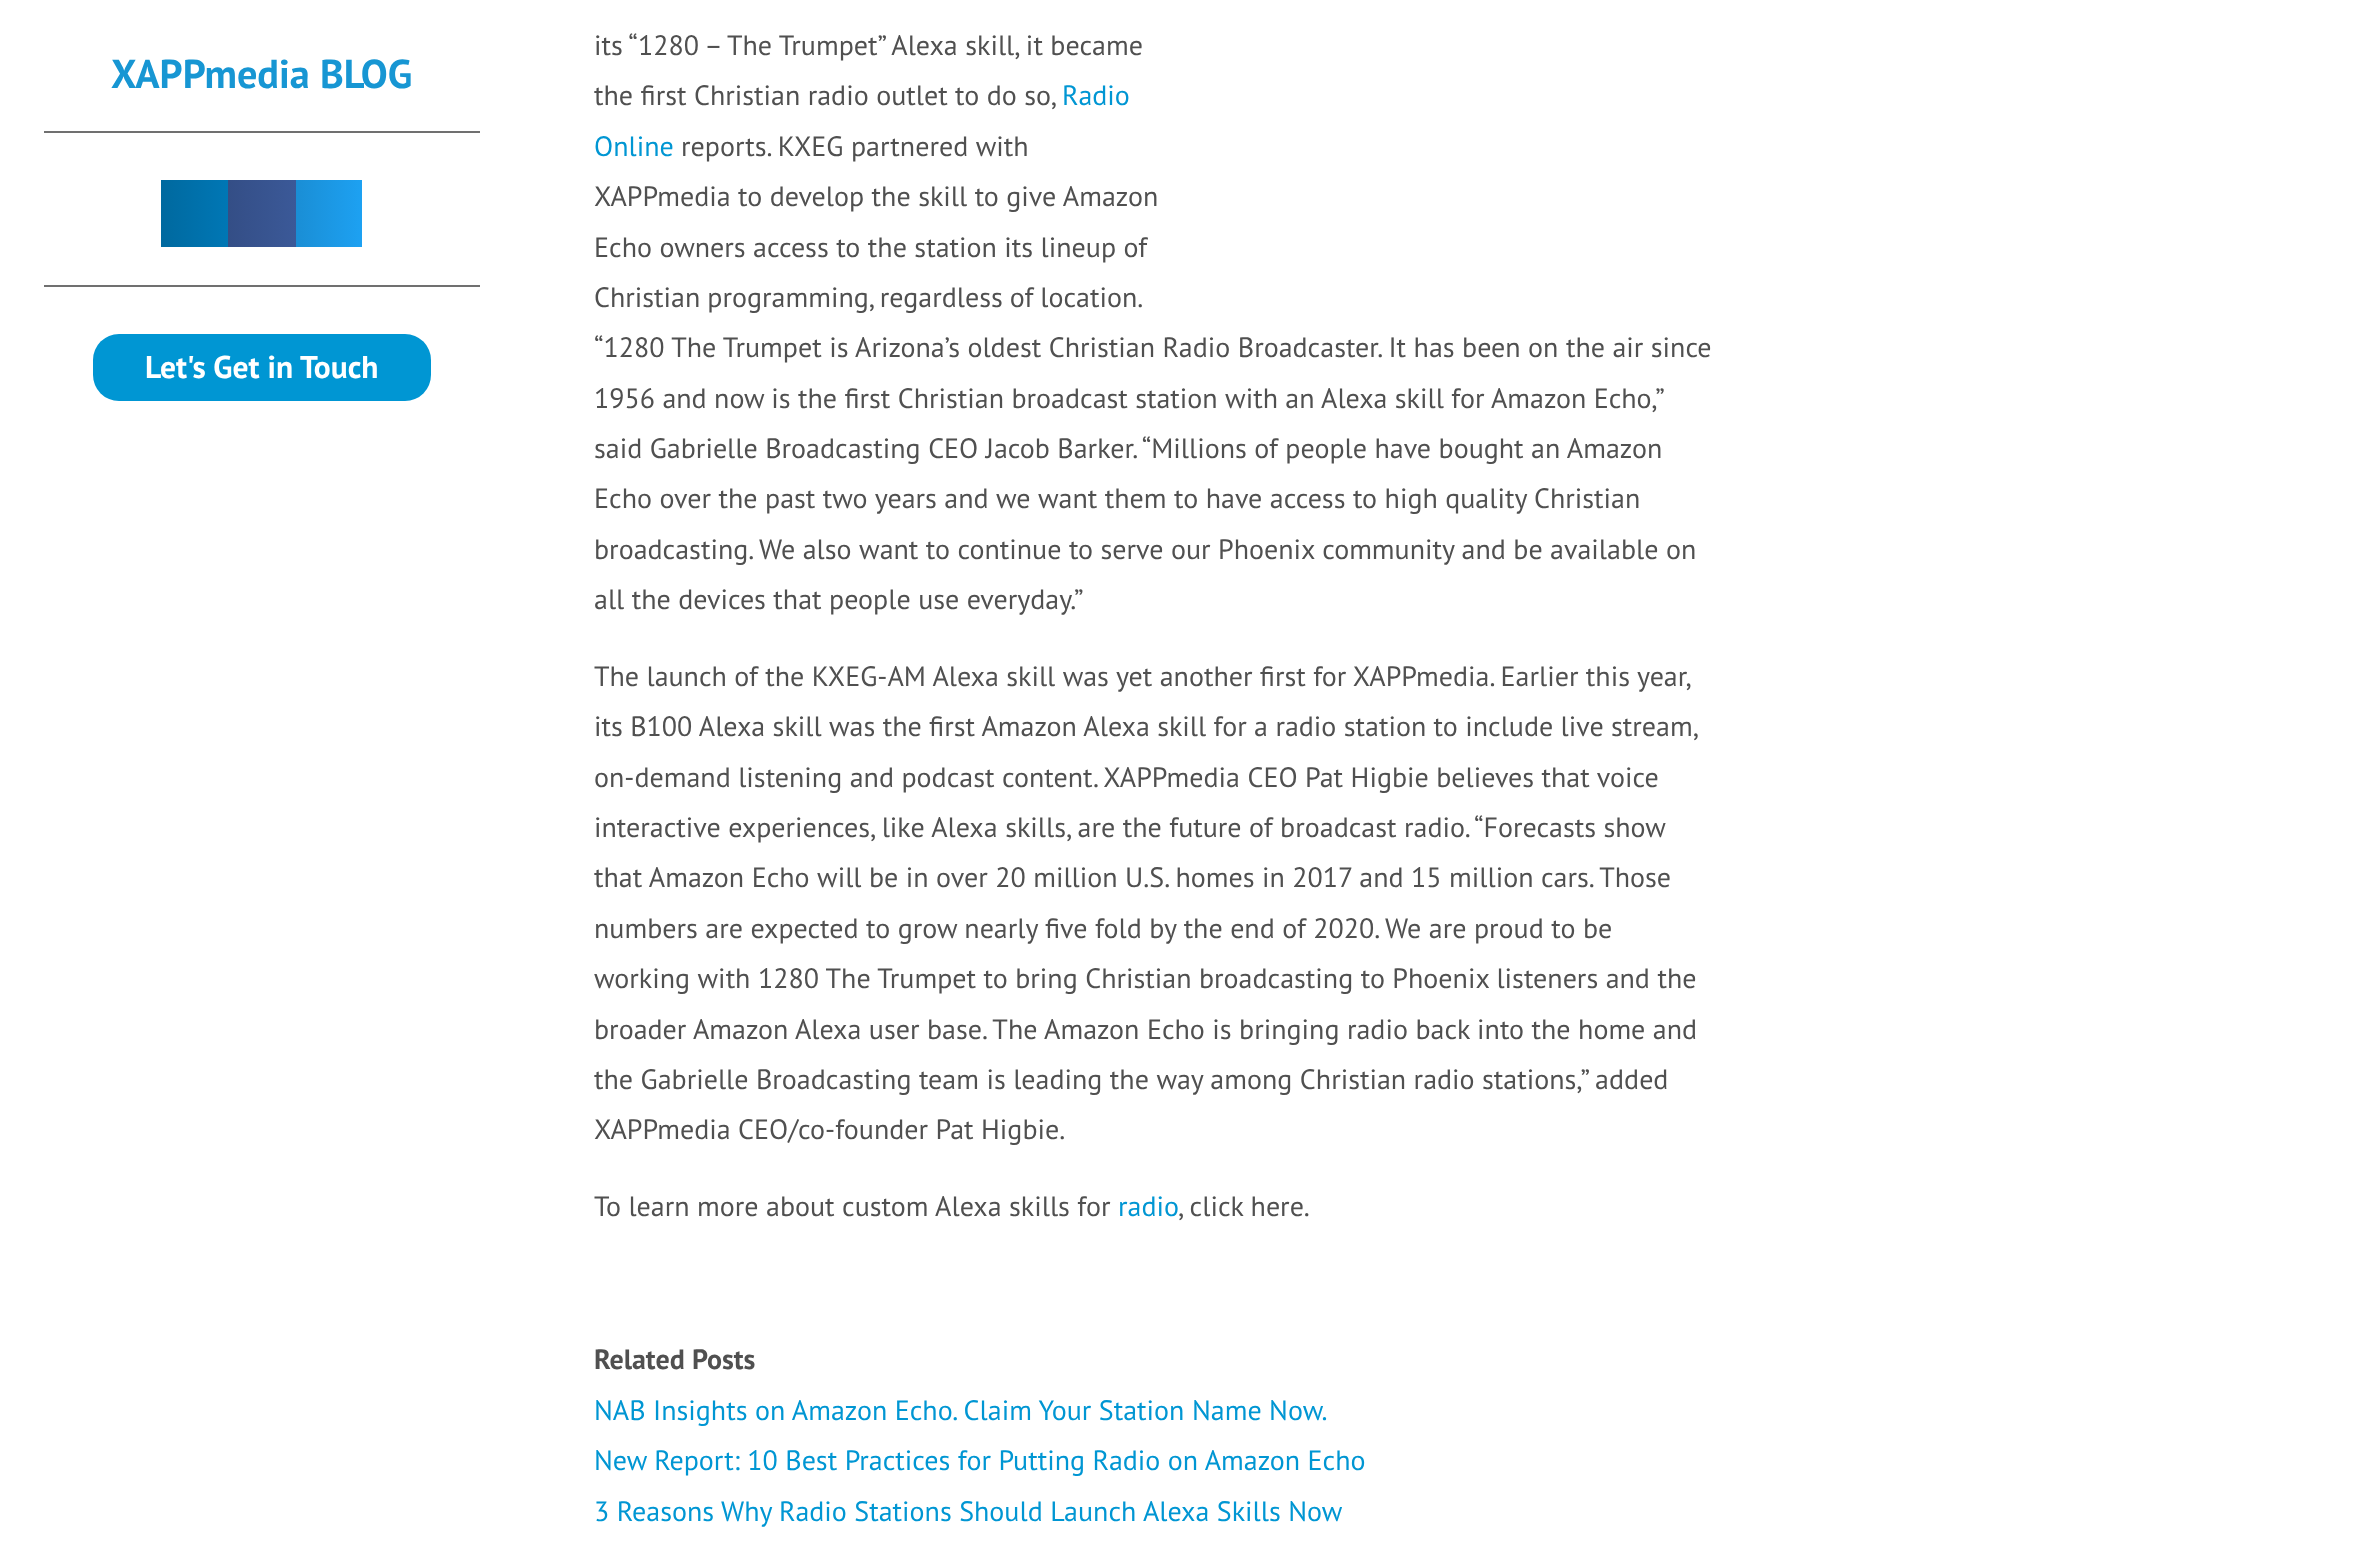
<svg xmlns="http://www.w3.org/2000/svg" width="2379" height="1565">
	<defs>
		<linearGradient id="g1" gradientUnits="userSpaceOnUse" x1="161" y1="214" x2="228" y2="214"><stop offset="0" stop-color="#00699F" /><stop offset="1" stop-color="#0077B5" /></linearGradient>
		<linearGradient id="g2" gradientUnits="userSpaceOnUse" x1="228" y1="214" x2="296" y2="214"><stop offset="0" stop-color="#344E86" /><stop offset="1" stop-color="#3B5998" /></linearGradient>
		<linearGradient id="g3" gradientUnits="userSpaceOnUse" x1="296" y1="214" x2="362" y2="214"><stop offset="0" stop-color="#1A8ED5" /><stop offset="1" stop-color="#1DA1F2" /></linearGradient>
	</defs>
	<rect width="100%" height="100%" fill="#FFFFFF" />
	<text x="111" y="88" font-family="PT Sans" font-size="40.25" font-weight="700" fill="#1796D3">XAPPmedia BLOG</text>
	<rect x="44" y="131" width="436" height="2" fill="#707070" />
	<rect x="161" y="180" width="67" height="67" fill="url(#g1)" />
	<rect x="228" y="180" width="68" height="67" fill="url(#g2)" />
	<rect x="296" y="180" width="66" height="67" fill="url(#g3)" />
	<rect x="44" y="285" width="436" height="2" fill="#707070" />
	<rect x="93" y="334" width="338" height="67" rx="26" fill="#0096D3" />
	<text x="145" y="378" font-family="PT Sans" font-size="31.5" font-weight="700" fill="#FFFFFF">Let's Get in Touch</text>
	<g font-family="PT Sans" font-size="28" fill="#505050">
		<text x="594" y="55">its “1280 – The Trumpet” Alexa skill, it became</text>
		<text x="594" y="105">the first Christian radio outlet to do so,</text>
	</g>
	<g font-family="PT Sans" font-size="28" fill="#0096D3">
		<text x="1062" y="105">Radio</text>
		<text x="594" y="156">Online</text>
	</g>
	<g font-family="PT Sans" font-size="28" fill="#505050">
		<text x="681" y="156">reports. KXEG partnered with</text>
		<text x="594" y="206">XAPPmedia to develop the skill to give Amazon</text>
		<text x="594" y="257">Echo owners access to the station its lineup of</text>
		<text x="594" y="307" word-spacing="-0.5">Christian programming, regardless of location.</text>
		<text x="594" y="357">“1280 The Trumpet is Arizona’s oldest Christian Radio Broadcaster. It has been on the air since</text>
		<text x="594" y="408" word-spacing="-0.1">1956 and now is the first Christian broadcast station with an Alexa skill for Amazon Echo,”</text>
		<text x="594" y="458">said Gabrielle Broadcasting CEO Jacob Barker. “Millions of people have bought an Amazon</text>
		<text x="594" y="508">Echo over the past two years and we want them to have access to high quality Christian</text>
		<text x="594" y="559">broadcasting. We also want to continue to serve our Phoenix community and be available on</text>
		<text x="594" y="609">all the devices that people use everyday.”</text>
		<text x="594" y="686" word-spacing="-0.1">The launch of the KXEG-AM Alexa skill was yet another first for XAPPmedia. Earlier this year,</text>
		<text x="594" y="736" word-spacing="-0.1">its B100 Alexa skill was the first Amazon Alexa skill for a radio station to include live stream,</text>
		<text x="594" y="787">on-demand listening and podcast content. XAPPmedia CEO Pat Higbie believes that voice</text>
		<text x="594" y="837">interactive experiences, like Alexa skills, are the future of broadcast radio. “Forecasts show</text>
		<text x="594" y="887">that Amazon Echo will be in over 20 million U.S. homes in 2017 and 15 million cars. Those</text>
		<text x="594" y="938">numbers are expected to grow nearly five fold by the end of 2020. We are proud to be</text>
		<text x="594" y="988">working with 1280 The Trumpet to bring Christian broadcasting to Phoenix listeners and the</text>
		<text x="594" y="1039">broader Amazon Alexa user base. The Amazon Echo is bringing radio back into the home and</text>
		<text x="594" y="1089">the Gabrielle Broadcasting team is leading the way among Christian radio stations,” added</text>
		<text x="594" y="1139">XAPPmedia CEO/co-founder Pat Higbie.</text>
		<text x="594" y="1216">To learn more about custom Alexa skills for</text>
	</g>
	<text x="1118" y="1216" font-family="PT Sans" font-size="28" fill="#0096D3">radio</text>
	<text x="1178" y="1216" font-family="PT Sans" font-size="28" fill="#505050">, click here.</text>
	<text x="594" y="1369" font-family="PT Sans" font-size="28" font-weight="700" fill="#505050">Related Posts</text>
	<g font-family="PT Sans" font-size="28" fill="#0096D3">
		<text x="594" y="1420">NAB Insights on Amazon Echo. Claim Your Station Name Now.</text>
		<text x="594" y="1470">New Report: 10 Best Practices for Putting Radio on Amazon Echo</text>
		<text x="594" y="1521">3 Reasons Why Radio Stations Should Launch Alexa Skills Now</text>
	</g>
</svg>
